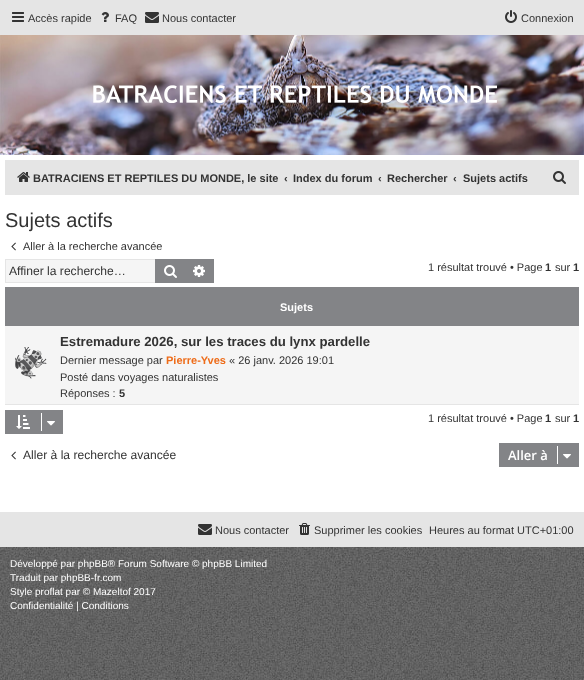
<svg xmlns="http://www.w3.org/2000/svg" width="584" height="680">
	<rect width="100%" height="100%" fill="#FFFFFF" />
	<image x="0" y="623" width="584" height="57" href="assets/img1.png" />
	<rect x="0" y="0" width="584" height="35" fill="#E5E5E5" />
	<image x="12" y="12" width="12" height="10" href="assets/img2.png" />
	<text x="28" y="22" font-family="Liberation Sans" font-size="11" fill="#333333">Accès rapide</text>
	<image x="101" y="12" width="8" height="10" href="assets/img3.png" />
	<text x="115" y="22" font-family="Liberation Sans" font-size="11" fill="#333333">FAQ</text>
	<image x="145" y="12" width="14" height="11" href="assets/img4.png" />
	<text x="162" y="22" font-family="Liberation Sans" font-size="11" fill="#333333">Nous contacter</text>
	<image x="505" y="10" width="12" height="13" href="assets/img5.png" />
	<text x="521" y="22" font-family="Liberation Sans" font-size="11" fill="#333333">Connexion</text>
	<image x="0" y="35" width="584" height="120" href="assets/img6.png" />
	<image x="93" y="85" width="404" height="18" href="assets/img7.png" />
	<rect x="5" y="160" width="574" height="35" fill="#E5E5E5" />
	<image x="17" y="172" width="13" height="10" href="assets/img8.png" />
	<g font-family="Liberation Sans" font-size="11" font-weight="700" fill="#333333">
		<text x="33" y="182">BATRACIENS ET REPTILES DU MONDE, le site</text>
		<text x="284" y="182">‹</text>
		<text x="293" y="182">Index du forum</text>
		<text x="378" y="182">‹</text>
		<text x="387" y="182">Rechercher</text>
		<text x="453" y="182">‹</text>
		<text x="463" y="182">Sujets actifs</text>
	</g>
	<image x="553" y="171" width="13" height="13" href="assets/img9.png" />
	<text x="5" y="227" font-family="Liberation Sans" font-size="20" fill="#333333">Sujets actifs</text>
	<image x="11" y="242" width="5" height="9" href="assets/img10.png" />
	<text x="23" y="250" font-family="Liberation Sans" font-size="11" fill="#333333">Aller à la recherche avancée</text>
	<rect x="6" y="260" width="149" height="22" fill="#F5F5F5" />
	<rect x="5" y="259" width="150" height="1" fill="#E5E5E5" />
	<rect x="5" y="282" width="150" height="1" fill="#E5E5E5" />
	<rect x="5" y="259" width="1" height="24" fill="#E5E5E5" />
	<text x="9" y="275" font-family="Liberation Sans" font-size="12.1" fill="#333333">Affiner la recherche…</text>
	<rect x="155" y="259" width="30" height="24" fill="#838487" />
	<image x="164" y="265" width="13" height="13" href="assets/img11.png" />
	<rect x="185" y="260" width="28" height="22" fill="#838487" />
	<rect x="185" y="259" width="29" height="1" fill="#838487" />
	<rect x="213" y="259" width="1" height="24" fill="#838487" />
	<rect x="185" y="282" width="29" height="1" fill="#838487" />
	<image x="193" y="265" width="12" height="12" href="assets/img12.png" />
	<text x="428" y="271" font-family="Liberation Sans" font-size="11" fill="#333333">1 résultat trouvé • Page</text>
	<text x="545" y="271" font-family="Liberation Sans" font-size="11" font-weight="700" fill="#333333">1</text>
	<text x="555" y="271" font-family="Liberation Sans" font-size="11" fill="#333333">sur</text>
	<text x="573" y="271" font-family="Liberation Sans" font-size="11" font-weight="700" fill="#333333">1</text>
	<rect x="5" y="287" width="574" height="39" fill="#838487" />
	<text x="280" y="311" font-family="Liberation Sans" font-size="11" font-weight="700" fill="#FFFFFF">Sujets</text>
	<rect x="5" y="326" width="574" height="78" fill="#F5F5F5" />
	<rect x="5" y="404" width="574" height="1" fill="#E5E5E5" />
	<image x="15" y="347" width="32" height="32" href="assets/img13.png" />
	<text x="60" y="346" font-family="Liberation Sans" font-size="13.2" font-weight="700" fill="#333333">Estremadure 2026, sur les traces du lynx pardelle</text>
	<text x="60" y="364" font-family="Liberation Sans" font-size="11" fill="#333333">Dernier message par</text>
	<text x="166" y="364" font-family="Liberation Sans" font-size="11" font-weight="700" fill="#EE6C19">Pierre-Yves</text>
	<g font-family="Liberation Sans" font-size="11" fill="#333333">
		<text x="229" y="364">« 26 janv. 2026 19:01</text>
		<text x="60" y="381">Posté dans voyages naturalistes</text>
		<text x="60" y="397">Réponses :</text>
	</g>
	<text x="119" y="397" font-family="Liberation Sans" font-size="11" font-weight="700" fill="#333333">5</text>
	<rect x="5" y="410" width="58" height="24" fill="#838487" />
	<image x="16" y="415" width="14" height="14" href="assets/img14.png" />
	<rect x="41" y="413" width="1" height="18" fill="#FFFFFF" />
	<image x="47" y="421" width="8" height="5" href="assets/img15.png" />
	<text x="428" y="422" font-family="Liberation Sans" font-size="11" fill="#333333">1 résultat trouvé • Page</text>
	<text x="545" y="422" font-family="Liberation Sans" font-size="11" font-weight="700" fill="#333333">1</text>
	<text x="555" y="422" font-family="Liberation Sans" font-size="11" fill="#333333">sur</text>
	<text x="573" y="422" font-family="Liberation Sans" font-size="11" font-weight="700" fill="#333333">1</text>
	<image x="11" y="451" width="5" height="9" href="assets/img10.png" />
	<text x="23" y="459" font-family="Liberation Sans" font-size="12.1" fill="#333333">Aller à la recherche avancée</text>
	<rect x="499" y="443" width="80" height="24" fill="#838487" />
	<text x="508" y="460" font-family="Open Sans" font-size="13" font-weight="600" fill="#FFFFFF">Aller à</text>
	<rect x="557" y="446" width="1" height="18" fill="#FFFFFF" />
	<image x="563" y="454" width="8" height="5" href="assets/img15.png" />
	<rect x="0" y="512" width="584" height="35" fill="#E5E5E5" />
	<image x="198" y="524" width="14" height="11" href="assets/img4.png" />
	<text x="215" y="534" font-family="Liberation Sans" font-size="11" fill="#333333">Nous contacter</text>
	<image x="299" y="523" width="11" height="12" href="assets/img16.png" />
	<g font-family="Liberation Sans" font-size="11" fill="#333333">
		<text x="314" y="534">Supprimer les cookies</text>
		<text x="429" y="534">Heures au format UTC+01:00</text>
	</g>
	<image x="0" y="547" width="584" height="76" href="assets/img17.png" />
	<g font-family="Liberation Sans" font-size="10" fill="#FFFFFF">
		<text x="10" y="567">Développé par phpBB® Forum Software © phpBB Limited</text>
		<text x="10" y="581">Traduit par phpBB-fr.com</text>
		<text x="10" y="595">Style proflat par © Mazeltof 2017</text>
		<text x="10" y="609">Confidentialité | Conditions</text>
	</g>
</svg>
